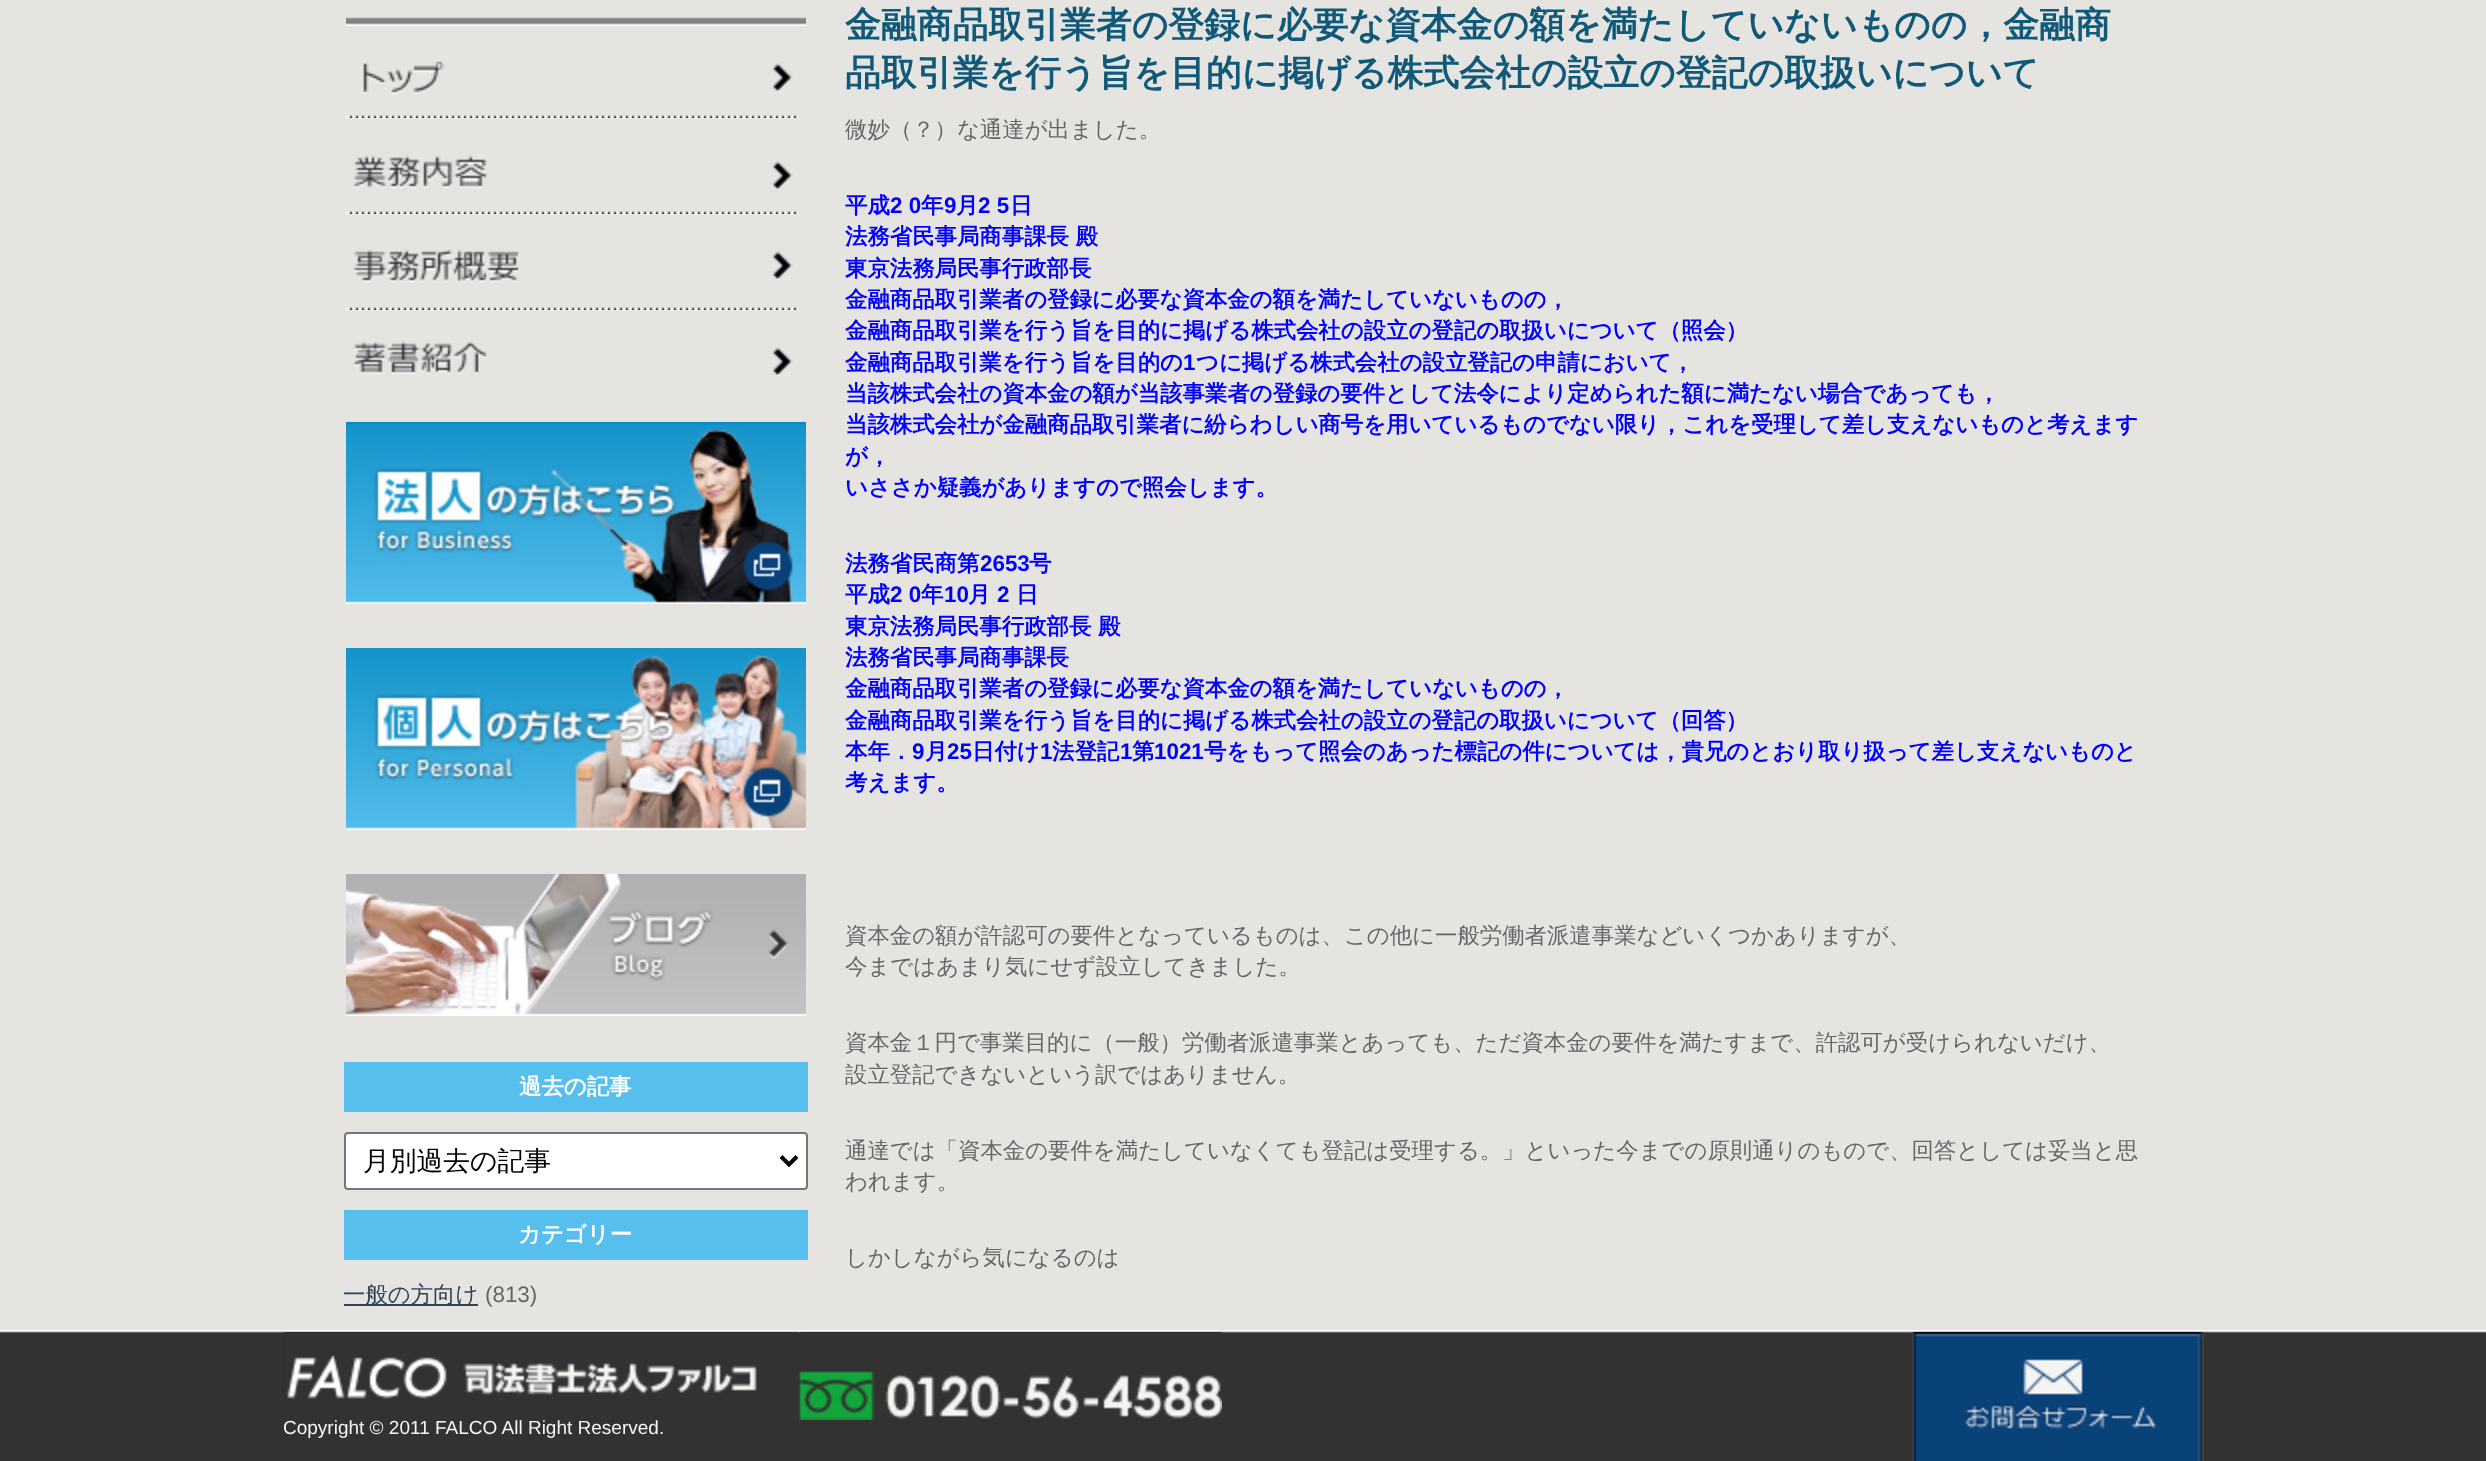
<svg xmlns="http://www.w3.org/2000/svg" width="2486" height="1461">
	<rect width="100%" height="100%" fill="#E6E4E1" />
	<image x="346" y="17" width="460" height="9" href="assets/img1.png" />
	<image x="346" y="61" width="453" height="57" href="assets/img2.png" />
	<image x="346" y="155" width="453" height="59" href="assets/img3.png" />
	<image x="346" y="249" width="453" height="61" href="assets/img4.png" />
	<image x="353" y="341" width="440" height="35" href="assets/img5.png" />
	<image x="346" y="422" width="460" height="182" href="assets/img6.png" />
	<image x="346" y="648" width="460" height="182" href="assets/img7.png" />
	<image x="346" y="874" width="460" height="142" href="assets/img8.png" />
	<rect x="344" y="1062" width="464" height="50" fill="#56BFED" />
	<text x="519" y="1094" font-family="WenQuanYi Zen Hei" font-size="22.4" font-weight="700" fill="#FFFFFF">過去の記事</text>
	<rect x="345" y="1133" width="462" height="56" rx="3" fill="#FFFFFF" stroke="#767676" stroke-width="2" />
	<path d="M781 1156.5L789 1164.5L797 1156.5" fill="none" stroke="#000000" stroke-width="4" />
	<text x="363" y="1170" font-family="WenQuanYi Zen Hei" font-size="26.75" font-weight="500" fill="#000000">月別過去の記事</text>
	<rect x="344" y="1210" width="464" height="50" fill="#56BFED" />
	<text x="518" y="1242" font-family="WenQuanYi Zen Hei" font-size="22.4" font-weight="700" fill="#FFFFFF">カテゴリー</text>
	<rect x="344" y="1304" width="134" height="2" fill="#2F4155" />
	<text x="343" y="1302" font-family="WenQuanYi Zen Hei" font-size="22.4" font-weight="500" fill="#2F4155">一般の方向け</text>
	<text x="485" y="1302" font-family="Liberation Sans" font-size="22.4" fill="#666666">(813)</text>
	<g font-family="WenQuanYi Zen Hei" font-size="35.85" font-weight="700" fill="#105978">
		<text x="845" y="37">金融商品取引業者の登録に必要な資本金の額を満たしていないものの，金融商</text>
		<text x="845" y="85">品取引業を行う旨を目的に掲げる株式会社の設立の登記の取扱いについて</text>
	</g>
	<text x="845" y="137" font-family="WenQuanYi Zen Hei" font-size="22.4" font-weight="500" fill="#666666">微妙（？）な通達が出ました。</text>
	<text x="845" y="213" font-family="WenQuanYi Zen Hei" font-size="22.4" font-weight="700" fill="#0000FF">平成</text>
	<text x="890" y="213" font-family="Liberation Sans" font-size="22.4" font-weight="700" fill="#0000FF">2 0</text>
	<text x="921" y="213" font-family="WenQuanYi Zen Hei" font-size="22.4" font-weight="700" fill="#0000FF">年</text>
	<text x="944" y="213" font-family="Liberation Sans" font-size="22.4" font-weight="700" fill="#0000FF">9</text>
	<text x="956" y="213" font-family="WenQuanYi Zen Hei" font-size="22.4" font-weight="700" fill="#0000FF">月</text>
	<text x="978" y="213" font-family="Liberation Sans" font-size="22.4" font-weight="700" fill="#0000FF">2 5</text>
	<g font-family="WenQuanYi Zen Hei" font-size="22.4" font-weight="700" fill="#0000FF">
		<text x="1010" y="213">日</text>
		<text x="845" y="244">法務省民事局商事課長 殿</text>
		<text x="845" y="276">東京法務局民事行政部長</text>
		<text x="845" y="307">金融商品取引業者の登録に必要な資本金の額を満たしていないものの，</text>
		<text x="845" y="338">金融商品取引業を行う旨を目的に掲げる株式会社の設立の登記の取扱いについて（照会）</text>
		<text x="845" y="370">金融商品取引業を行う旨を目的の</text>
	</g>
	<text x="1183" y="370" font-family="Liberation Sans" font-size="22.4" font-weight="700" fill="#0000FF">1</text>
	<g font-family="WenQuanYi Zen Hei" font-size="22.4" font-weight="700" fill="#0000FF">
		<text x="1196" y="370">つに掲げる株式会社の設立登記の申請において，</text>
		<text x="845" y="401">当該株式会社の資本金の額が当該事業者の登録の要件として法令により定められた額に満たない場合であっても，</text>
		<text x="845" y="432">当該株式会社が金融商品取引業者に紛らわしい商号を用いているものでない限り，これを受理して差し支えないものと考えます</text>
		<text x="845" y="464">が，</text>
		<text x="845" y="495">いささか疑義がありますので照会します。</text>
		<text x="845" y="571">法務省民商第</text>
	</g>
	<text x="980" y="571" font-family="Liberation Sans" font-size="22.4" font-weight="700" fill="#0000FF">2653</text>
	<g font-family="WenQuanYi Zen Hei" font-size="22.4" font-weight="700" fill="#0000FF">
		<text x="1029" y="571">号</text>
		<text x="845" y="602">平成</text>
	</g>
	<text x="890" y="602" font-family="Liberation Sans" font-size="22.4" font-weight="700" fill="#0000FF">2 0</text>
	<text x="921" y="602" font-family="WenQuanYi Zen Hei" font-size="22.4" font-weight="700" fill="#0000FF">年</text>
	<text x="944" y="602" font-family="Liberation Sans" font-size="22.4" font-weight="700" fill="#0000FF">10</text>
	<text x="968" y="602" font-family="WenQuanYi Zen Hei" font-size="22.4" font-weight="700" fill="#0000FF">月</text>
	<text x="997" y="602" font-family="Liberation Sans" font-size="22.4" font-weight="700" fill="#0000FF">2</text>
	<g font-family="WenQuanYi Zen Hei" font-size="22.4" font-weight="700" fill="#0000FF">
		<text x="1016" y="602">日</text>
		<text x="845" y="634">東京法務局民事行政部長 殿</text>
		<text x="845" y="665">法務省民事局商事課長</text>
		<text x="845" y="696">金融商品取引業者の登録に必要な資本金の額を満たしていないものの，</text>
		<text x="845" y="728">金融商品取引業を行う旨を目的に掲げる株式会社の設立の登記の取扱いについて（回答）</text>
		<text x="845" y="759">本年．</text>
	</g>
	<text x="912" y="759" font-family="Liberation Sans" font-size="22.4" font-weight="700" fill="#0000FF">9</text>
	<text x="925" y="759" font-family="WenQuanYi Zen Hei" font-size="22.4" font-weight="700" fill="#0000FF">月</text>
	<text x="947" y="759" font-family="Liberation Sans" font-size="22.4" font-weight="700" fill="#0000FF">25</text>
	<text x="972" y="759" font-family="WenQuanYi Zen Hei" font-size="22.4" font-weight="700" fill="#0000FF">日付け</text>
	<text x="1040" y="759" font-family="Liberation Sans" font-size="22.4" font-weight="700" fill="#0000FF">1</text>
	<text x="1052" y="759" font-family="WenQuanYi Zen Hei" font-size="22.4" font-weight="700" fill="#0000FF">法登記</text>
	<text x="1120" y="759" font-family="Liberation Sans" font-size="22.4" font-weight="700" fill="#0000FF">1</text>
	<text x="1132" y="759" font-family="WenQuanYi Zen Hei" font-size="22.4" font-weight="700" fill="#0000FF">第</text>
	<text x="1154" y="759" font-family="Liberation Sans" font-size="22.4" font-weight="700" fill="#0000FF">1021</text>
	<g font-family="WenQuanYi Zen Hei" font-size="22.4" font-weight="700" fill="#0000FF">
		<text x="1204" y="759">号をもって照会のあった標記の件については，貴兄のとおり取り扱って差し支えないものと</text>
		<text x="845" y="790">考えます。</text>
	</g>
	<g font-family="WenQuanYi Zen Hei" font-size="22.4" font-weight="500" fill="#666666">
		<text x="845" y="943">資本金の額が許認可の要件となっているものは、この他に一般労働者派遣事業などいくつかありますが、</text>
		<text x="845" y="974">今まではあまり気にせず設立してきました。</text>
		<text x="845" y="1050">資本金１円で事業目的に（一般）労働者派遣事業とあっても、ただ資本金の要件を満たすまで、許認可が受けられないだけ、</text>
		<text x="845" y="1082">設立登記できないという訳ではありません。</text>
		<text x="845" y="1158">通達では「資本金の要件を満たしていなくても登記は受理する。」といった今までの原則通りのもので、回答としては妥当と思</text>
		<text x="845" y="1189">われます。</text>
		<text x="845" y="1265">しかしながら気になるのは</text>
	</g>
	<image x="0" y="1330" width="2486" height="131" href="assets/img9.png" />
	<image x="283" y="1332" width="515" height="67" href="assets/img10.png" />
	<image x="799" y="1332" width="423" height="88" href="assets/img11.png" />
	<rect x="2202" y="1332" width="2" height="129" fill="#3F3F3F" />
	<rect x="1912" y="1332" width="2" height="129" fill="#3F3F3F" />
	<image x="1913" y="1332" width="289" height="129" href="assets/img12.png" />
	<text x="283" y="1434" font-family="Liberation Sans" font-size="19" fill="#F5F4F1">Copyright © 2011 FALCO All Right Reserved.</text>
</svg>
